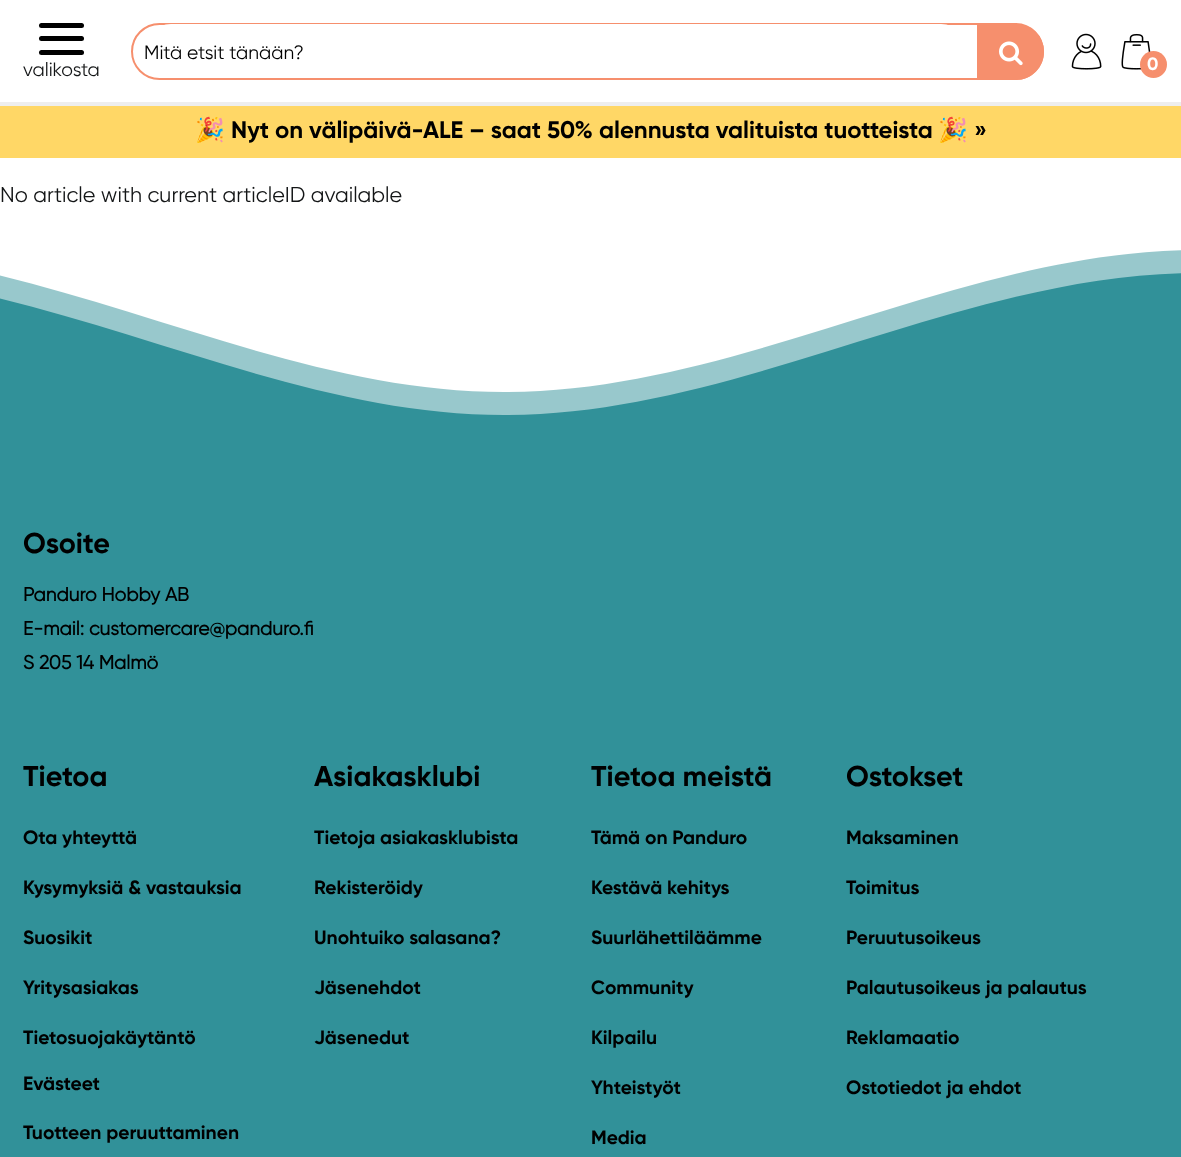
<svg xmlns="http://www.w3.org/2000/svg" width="1181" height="1157">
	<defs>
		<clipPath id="clip1"><rect x="0" y="234" width="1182" height="221" /></clipPath>
	</defs>
	<rect width="100%" height="100%" fill="#FFFFFF" />
	<rect x="0" y="102" width="1181" height="4" fill="#EEEEEE" />
	<rect x="132" y="24" width="911" height="55" rx="27.5" fill="none" stroke="#F68F6D" stroke-width="2" />
	<rect x="144" y="24" width="824" height="54" rx="27" fill="#FFFFFF" />
	<text x="144" y="59" font-family="Gilroy" font-size="19.25" fill="#000000">Mitä etsit tänään?</text>
	<path d="M977 24H1016C1031.5 24 1044 36.5 1044 52C1044 67.5 1031.5 80 1016 80H977Z" fill="#F68F6D" />
	<image x="999" y="41" width="24" height="25" href="assets/img1.png" />
	<image x="1071" y="33" width="31" height="37" href="assets/img2.png" />
	<rect x="39" y="36" width="45" height="5" rx="2.5" fill="#000000" />
	<rect x="39" y="23" width="45" height="5" rx="2.5" fill="#000000" />
	<rect x="39" y="50" width="45" height="5" rx="2.5" fill="#000000" />
	<text x="23" y="76" font-family="Gilroy" font-size="19.25" fill="#131516">valikosta</text>
	<image x="1121" y="33" width="30" height="37" href="assets/img3.png" />
	<circle cx="1153.5" cy="64.5" r="13.5" fill="#F68F6D" />
	<text x="1147" y="70" font-family="Gilroy" font-size="18" font-weight="700" fill="#FFFFFF">0</text>
	<rect x="0" y="106" width="1181" height="52" fill="#FFD766" />
	<text x="195" y="138" font-family="Noto Color Emoji" font-size="24" fill="#000000">🎉</text>
	<text x="231" y="138" font-family="Gilroy" font-size="24" font-weight="700" fill="#000000">Nyt on välipäivä-ALE – saat 50% alennusta valituista tuotteista</text>
	<text x="938" y="138" font-family="Noto Color Emoji" font-size="24" fill="#000000">🎉</text>
	<text x="974" y="138" font-family="Gilroy" font-size="24" font-weight="700" fill="#000000">»</text>
	<text x="0" y="202" font-family="Gilroy" font-size="21.6" fill="#131516">No article with current articleID available</text>
	<g clip-path="url(#clip1)">
		<path d="M-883 392C-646 392-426 250-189 250C47 250 268 392 504 392C741 392 961 250 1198 250C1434 250 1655 392 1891 392V738H-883Z" fill="#319199" fill-opacity="0.5" />
		<path d="M-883 415C-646 415-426 273-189 273C47 273 268 415 504 415C741 415 961 273 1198 273C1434 273 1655 415 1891 415V762H-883Z" fill="#319199" />
	</g>
	<rect x="0" y="455" width="1181" height="702" fill="#319199" />
	<text x="23" y="553" font-family="Gilroy" font-size="28.75" font-weight="700" fill="#000000">Osoite</text>
	<g font-family="'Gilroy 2'" font-size="19.25" font-weight="700" fill="#000000">
		<text x="23" y="601">Panduro Hobby AB</text>
		<text x="23" y="635">E-mail: customercare@panduro.fi</text>
		<text x="23" y="669">S 205 14 Malmö</text>
	</g>
	<text x="23" y="786" font-family="Gilroy" font-size="28.75" font-weight="700" fill="#000000">Tietoa</text>
	<g font-family="Gilroy" font-size="19.25" font-weight="700" fill="#000000">
		<text x="23" y="844">Ota yhteyttä</text>
		<text x="23" y="894">Kysymyksiä &amp; vastauksia</text>
		<text x="23" y="944">Suosikit</text>
		<text x="23" y="994">Yritysasiakas</text>
		<text x="23" y="1044">Tietosuojakäytäntö</text>
		<text x="23" y="1090">Evästeet</text>
		<text x="23" y="1139">Tuotteen peruuttaminen</text>
	</g>
	<text x="314" y="786" font-family="Gilroy" font-size="28.75" font-weight="700" fill="#000000">Asiakasklubi</text>
	<g font-family="Gilroy" font-size="19.25" font-weight="700" fill="#000000">
		<text x="314" y="844">Tietoja asiakasklubista</text>
		<text x="314" y="894">Rekisteröidy</text>
		<text x="314" y="944">Unohtuiko salasana?</text>
		<text x="314" y="994">Jäsenehdot</text>
		<text x="314" y="1044">Jäsenedut</text>
	</g>
	<text x="591" y="786" font-family="Gilroy" font-size="28.75" font-weight="700" fill="#000000">Tietoa meistä</text>
	<g font-family="Gilroy" font-size="19.25" font-weight="700" fill="#000000">
		<text x="591" y="844">Tämä on Panduro</text>
		<text x="591" y="894">Kestävä kehitys</text>
		<text x="591" y="944">Suurlähettiläämme</text>
		<text x="591" y="994">Community</text>
		<text x="591" y="1044">Kilpailu</text>
		<text x="591" y="1094">Yhteistyöt</text>
		<text x="591" y="1144">Media</text>
	</g>
	<text x="846" y="786" font-family="Gilroy" font-size="28.75" font-weight="700" fill="#000000">Ostokset</text>
	<g font-family="Gilroy" font-size="19.25" font-weight="700" fill="#000000">
		<text x="846" y="844">Maksaminen</text>
		<text x="846" y="894">Toimitus</text>
		<text x="846" y="944">Peruutusoikeus</text>
		<text x="846" y="994">Palautusoikeus ja palautus</text>
		<text x="846" y="1044">Reklamaatio</text>
		<text x="846" y="1094">Ostotiedot ja ehdot</text>
	</g>
</svg>
